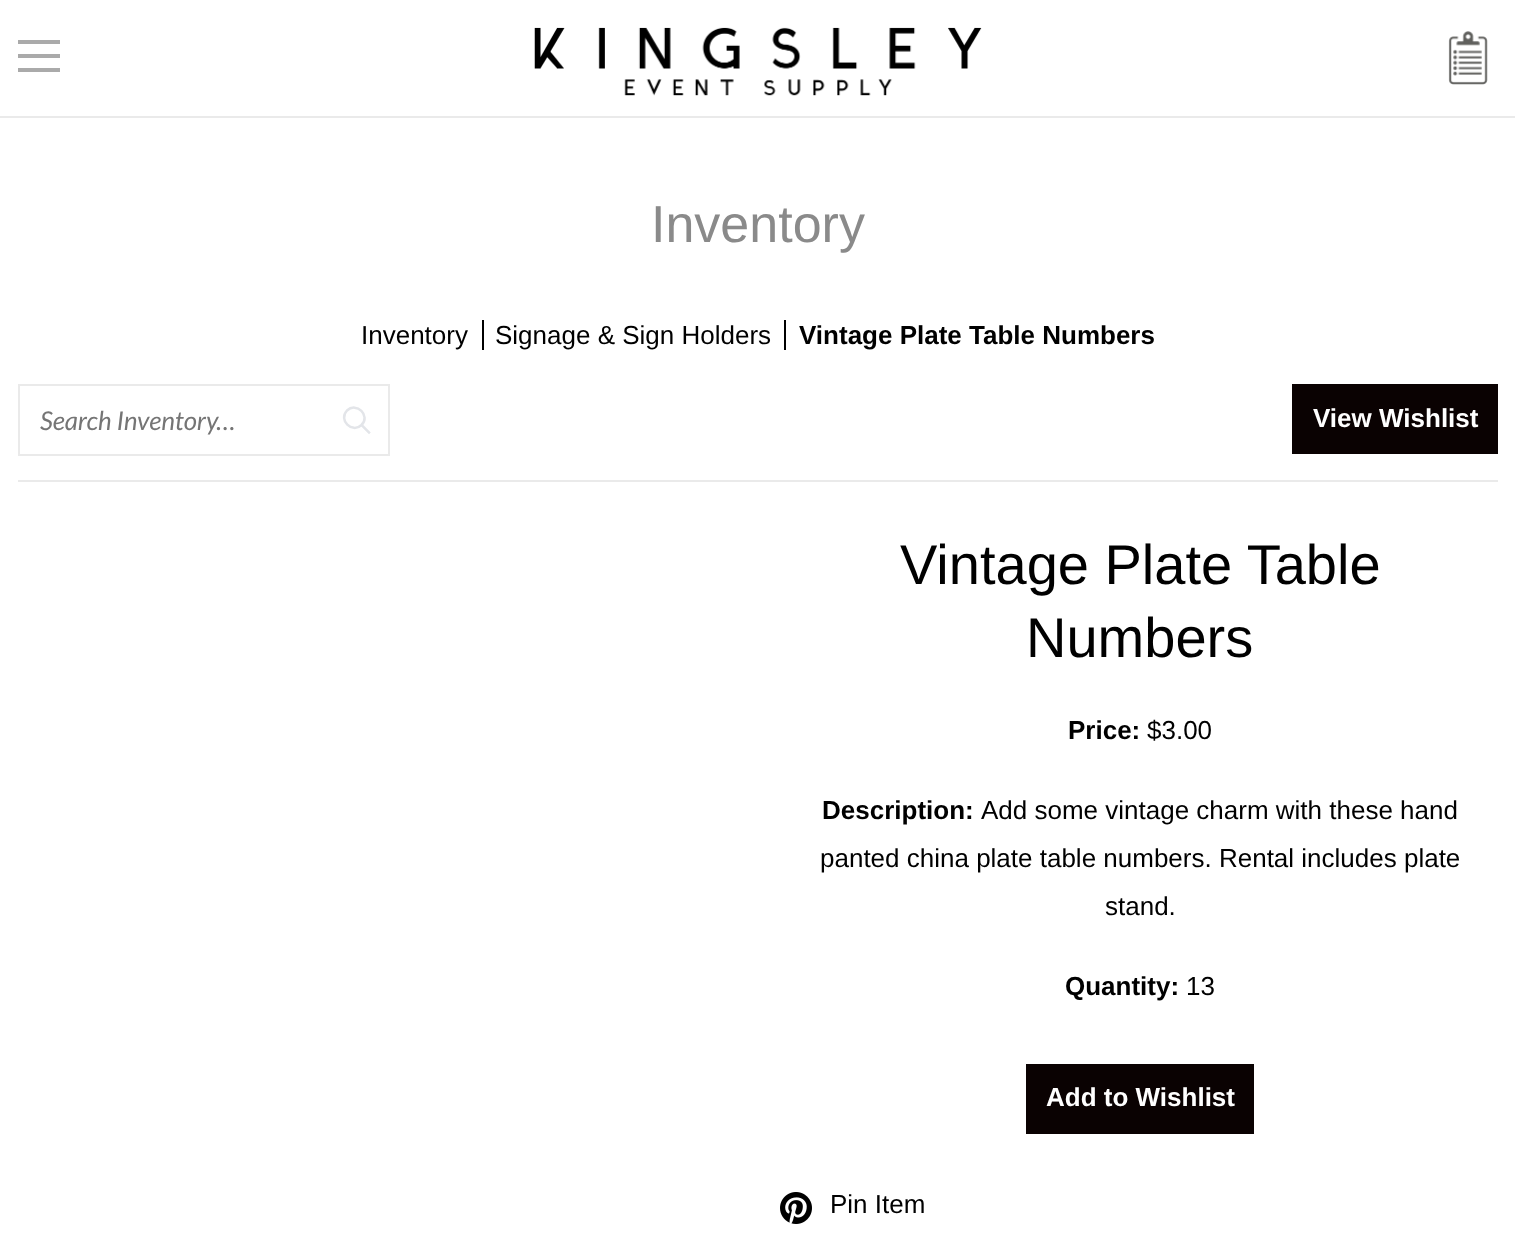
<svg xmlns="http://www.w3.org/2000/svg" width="1515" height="1246">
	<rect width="100%" height="100%" fill="#FFFFFF" />
	<rect x="0" y="116" width="1515" height="2" fill="#EAEAEA" />
	<rect x="18" y="40" width="42" height="4" fill="#AAAAAA" />
	<rect x="18" y="54" width="42" height="4" fill="#AAAAAA" />
	<rect x="18" y="68" width="42" height="4" fill="#AAAAAA" />
	<image x="534" y="27" width="448" height="69" href="assets/img1.png" />
	<image x="1448" y="31" width="40" height="54" href="assets/img2.png" />
	<text x="651" y="242" font-family="Liberation Sans" font-size="52" fill="#8A8A8A">Inventory</text>
	<rect x="18" y="480" width="1480" height="2" fill="#EAEAEA" />
	<g font-family="Liberation Sans" font-size="26" fill="#000000">
		<text x="361" y="344">Inventory</text>
		<text x="495" y="344">Signage &amp; Sign Holders</text>
	</g>
	<rect x="482" y="320" width="2" height="30" fill="#000000" />
	<text x="799" y="344" font-family="Liberation Sans" font-size="26" font-weight="700" fill="#000000">Vintage Plate Table Numbers</text>
	<rect x="784" y="320" width="2" height="30" fill="#000000" />
	<rect x="19" y="385" width="370" height="70" fill="none" stroke="#EAEAEA" stroke-width="2" />
	<text x="40" y="430" font-family="Lato" font-size="26" font-style="italic" fill="#757575">Search Inventory…</text>
	<path d="M347 410.5C356.5 401.5 371 415.5 361.5 425C352 434 338 420 347 410.5Z" fill="none" stroke="#E3E5E9" stroke-width="2.5" />
	<path d="M362 425.5L369 432.5" fill="none" stroke="#E3E5E9" stroke-width="2.5" stroke-linecap="square" />
	<rect x="1292" y="384" width="206" height="70" fill="#0A0202" />
	<text x="1313" y="427" font-family="Liberation Sans" font-size="26" font-weight="700" fill="#FFFFFF">View Wishlist</text>
	<g font-family="Liberation Sans" font-size="56" fill="#000000">
		<text x="900" y="584">Vintage Plate Table</text>
		<text x="1026" y="657">Numbers</text>
	</g>
	<text x="1068" y="739" font-family="Liberation Sans" font-size="26" font-weight="700" fill="#000000">Price:</text>
	<text x="1147" y="739" font-family="Liberation Sans" font-size="26" fill="#000000">$3.00</text>
	<text x="822" y="819" font-family="Liberation Sans" font-size="26" font-weight="700" fill="#000000">Description:</text>
	<g font-family="Liberation Sans" font-size="26" fill="#000000">
		<text x="981" y="819">Add some vintage charm with these hand</text>
		<text x="820" y="867">panted china plate table numbers. Rental includes plate</text>
		<text x="1105" y="915">stand.</text>
	</g>
	<text x="1065" y="995" font-family="Liberation Sans" font-size="26" font-weight="700" fill="#000000">Quantity:</text>
	<text x="1186" y="995" font-family="Liberation Sans" font-size="26" fill="#000000">13</text>
	<rect x="1026" y="1064" width="228" height="70" fill="#0A0202" />
	<text x="1046" y="1106" font-family="Liberation Sans" font-size="26" font-weight="700" fill="#FFFFFF">Add to Wishlist</text>
	<image x="780" y="1192" width="32" height="32" href="assets/img3.png" />
	<text x="830" y="1213" font-family="Liberation Sans" font-size="26" fill="#000000">Pin Item</text>
</svg>
